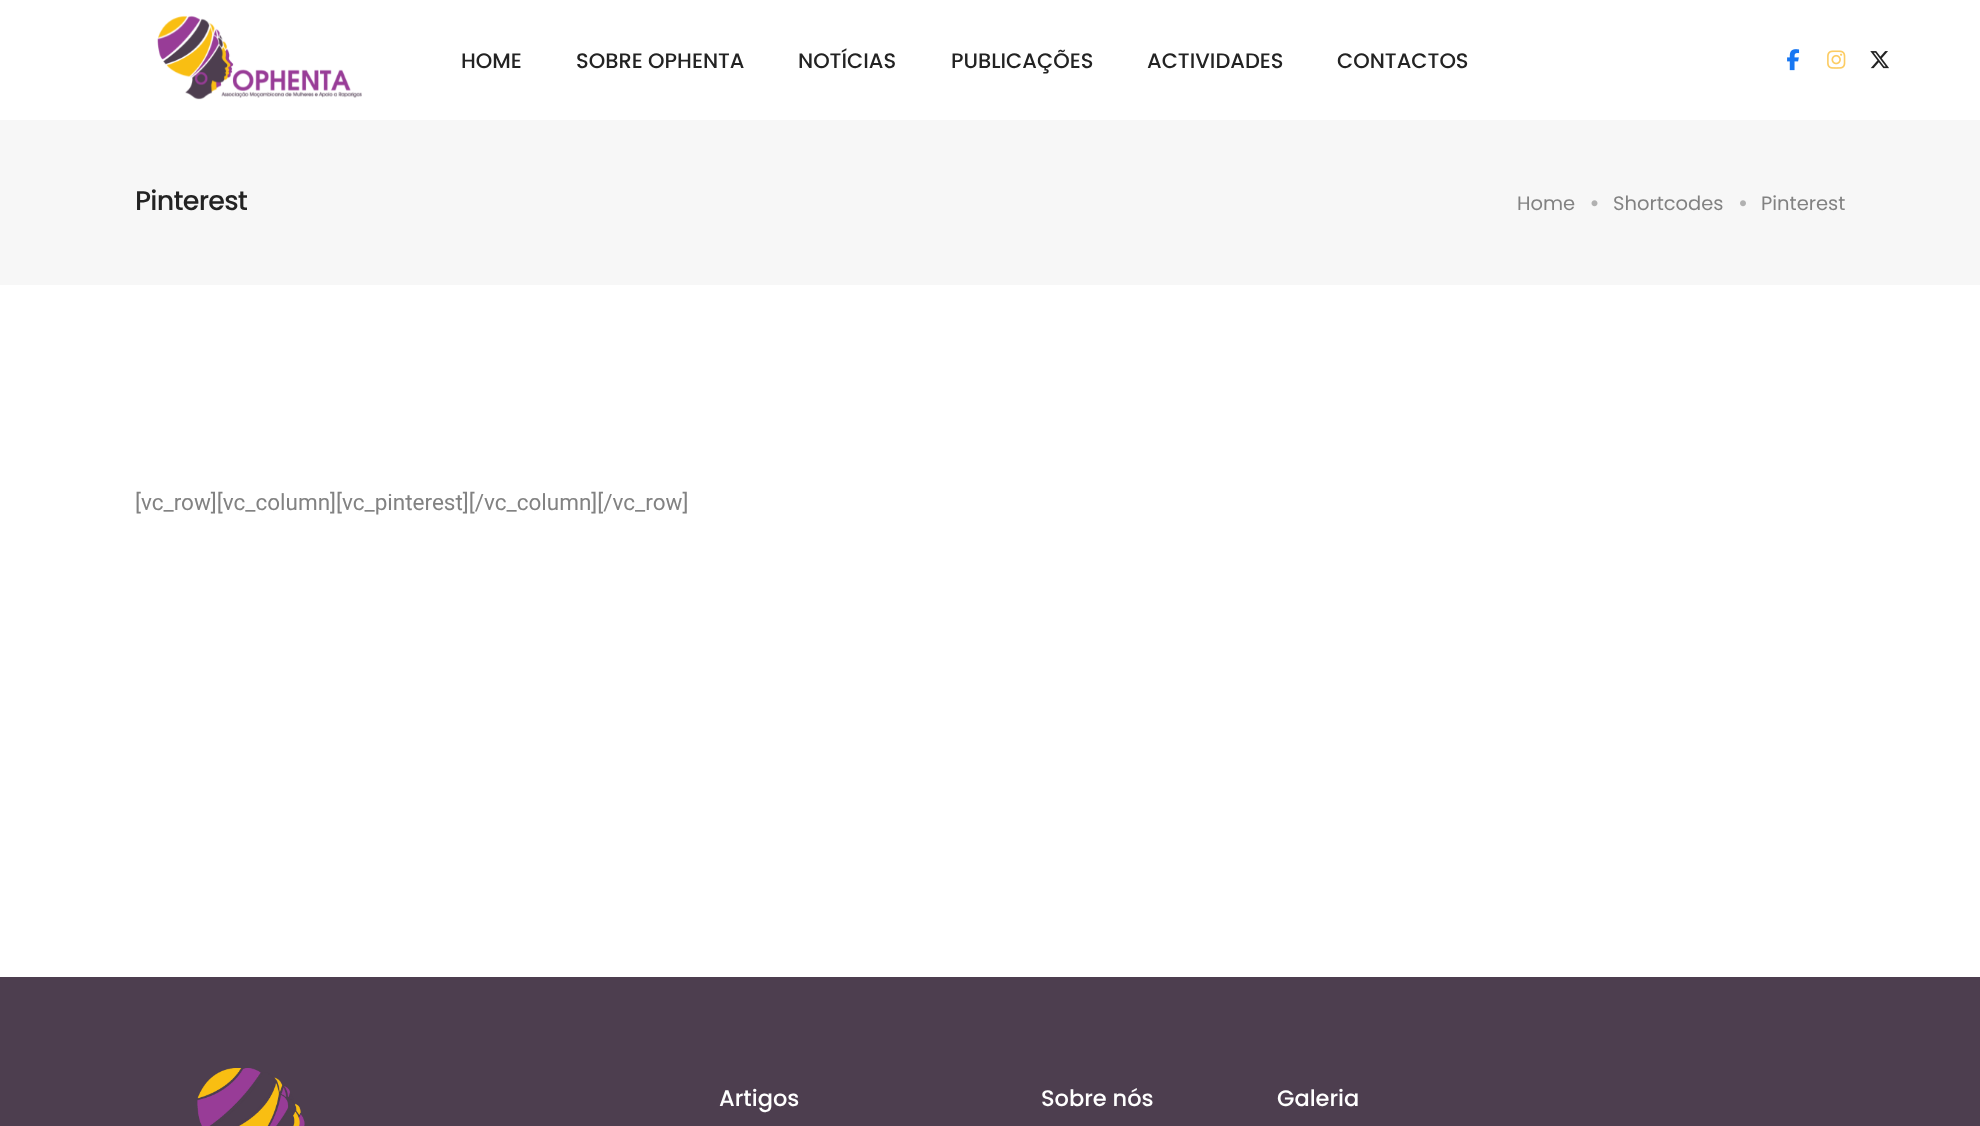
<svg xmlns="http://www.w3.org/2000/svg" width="1980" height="1126">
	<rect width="100%" height="100%" fill="#FFFFFF" />
	<image x="157" y="15" width="205" height="85" href="assets/img1.png" />
	<g font-family="Poppins" font-size="21" font-weight="500" fill="#232323">
		<text x="461" y="68">HOME</text>
		<text x="576" y="68">SOBRE OPHENTA</text>
		<text x="798" y="68">NOTÍCIAS</text>
		<text x="951" y="68">PUBLICAÇÕES</text>
		<text x="1147" y="68">ACTIVIDADES</text>
		<text x="1337" y="68">CONTACTOS</text>
	</g>
	<image x="1787" y="49" width="13" height="22" href="assets/img2.png" />
	<image x="1827" y="50" width="19" height="19" href="assets/img3.png" />
	<image x="1870" y="51" width="19" height="18" href="assets/img4.png" />
	<rect x="0" y="120" width="1980" height="165" fill="#F7F7F7" />
	<text x="135" y="210" font-family="Poppins" font-size="27" font-weight="500" letter-spacing="-0.75" fill="#232323">Pinterest</text>
	<text x="1517" y="210" font-family="Poppins" font-size="19.5" fill="#828282">Home</text>
	<image x="1591" y="200" width="7" height="7" href="assets/img5.png" />
	<text x="1613" y="210" font-family="Poppins" font-size="19.5" fill="#828282">Shortcodes</text>
	<image x="1740" y="200" width="6" height="7" href="assets/img6.png" />
	<text x="1761" y="210" font-family="Poppins" font-size="19.5" fill="#828282">Pinterest</text>
	<text x="135" y="510" font-family="Roboto" font-size="22.5" fill="#828282">[vc_row][vc_column][vc_pinterest][/vc_column][/vc_row]</text>
	<rect x="0" y="977" width="1980" height="149" fill="#4D3E4F" />
	<image x="197" y="1068" width="108" height="58" href="assets/img7.png" />
	<g font-family="Poppins" font-size="22.5" font-weight="500" fill="#FFFFFF">
		<text x="719" y="1106">Artigos</text>
		<text x="1041" y="1106">Sobre nós</text>
		<text x="1277" y="1106">Galeria</text>
	</g>
</svg>
